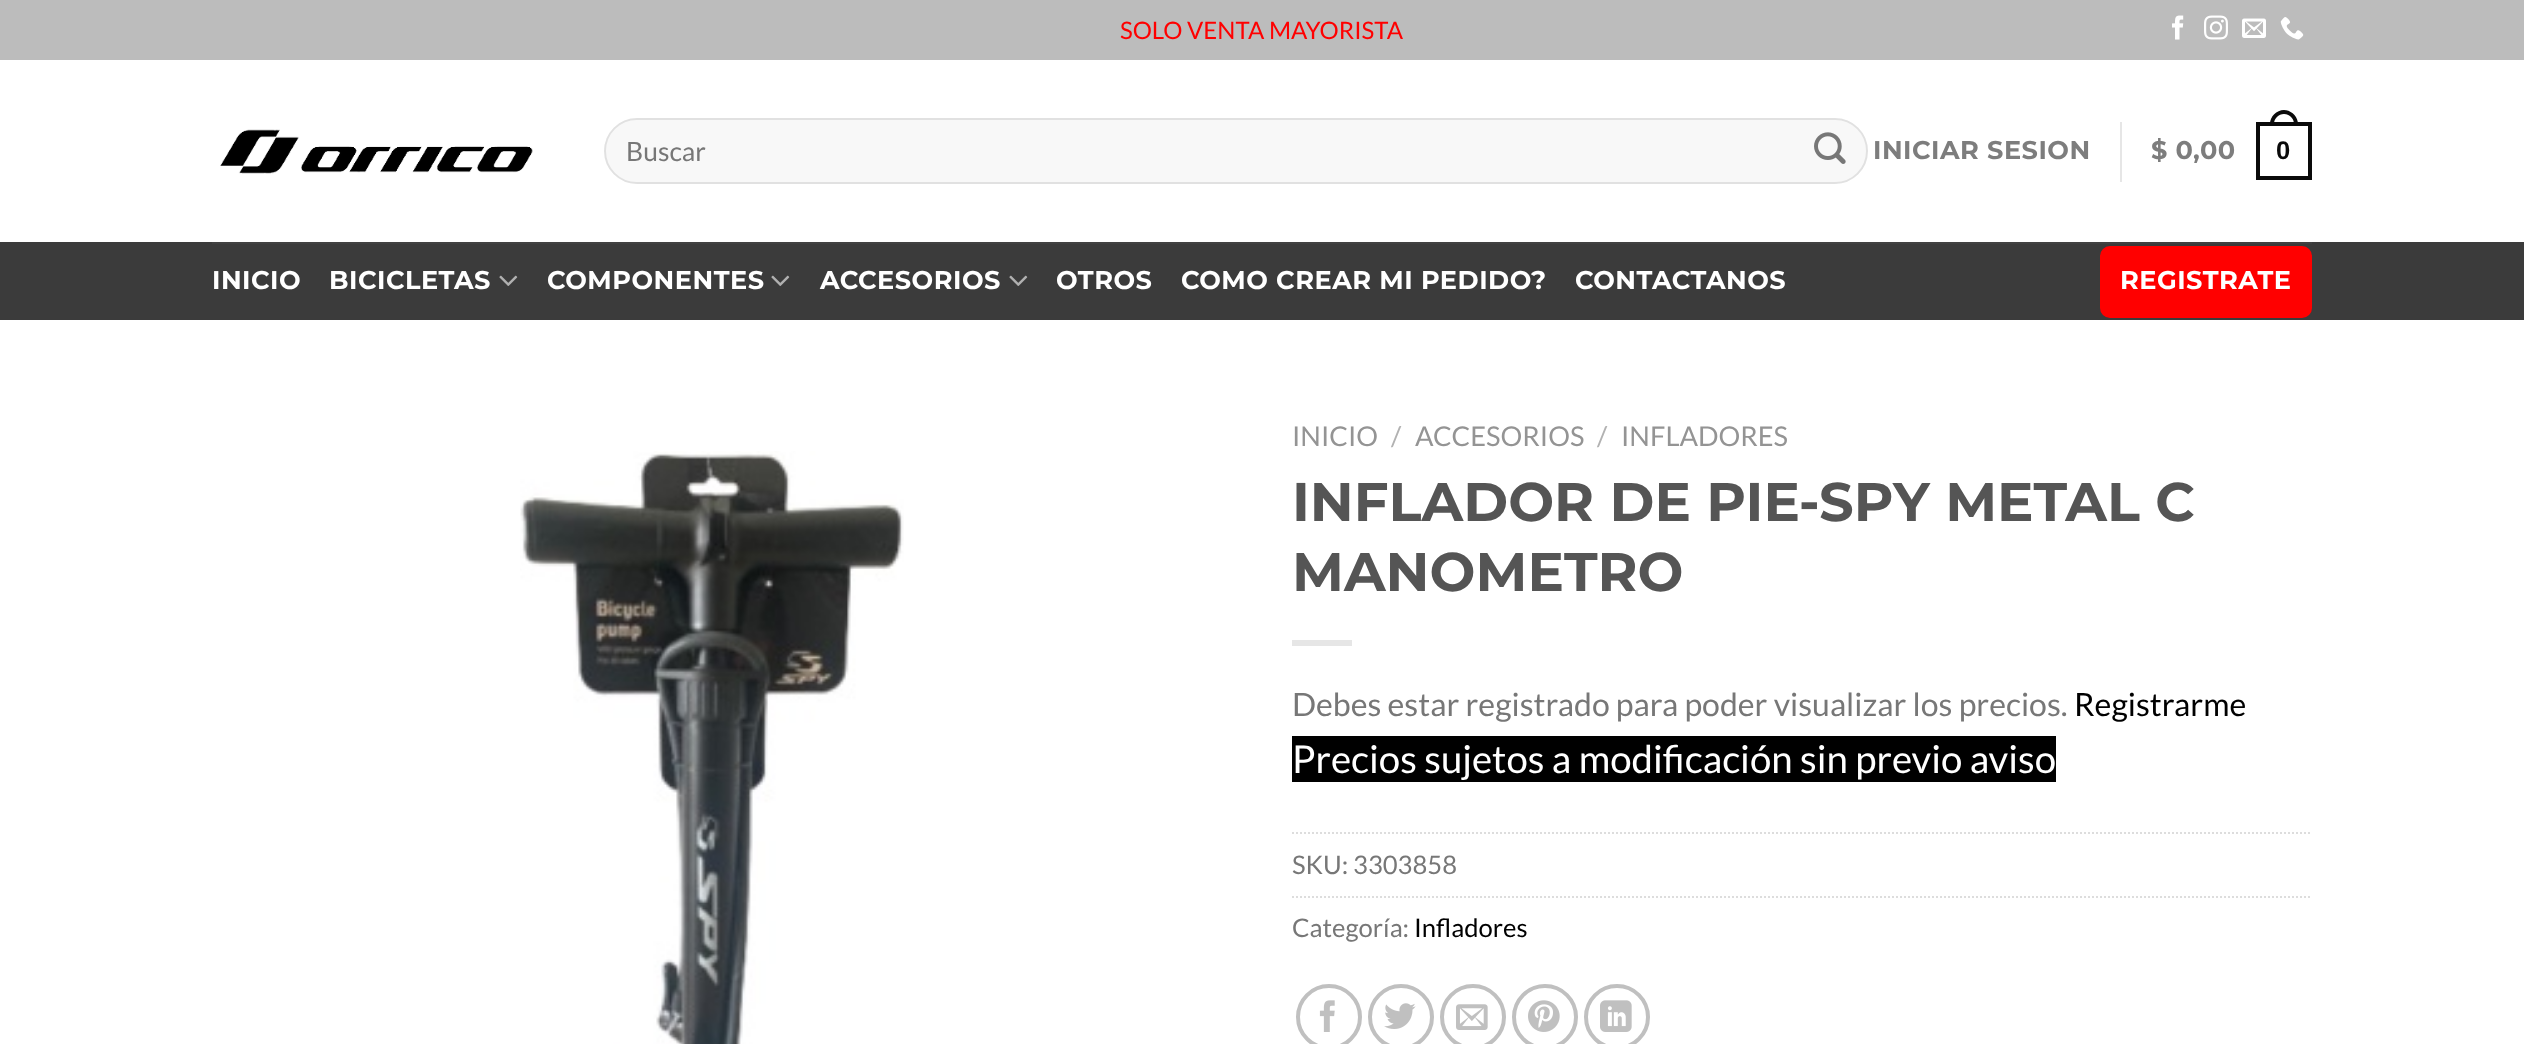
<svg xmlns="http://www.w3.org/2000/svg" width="2524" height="1044">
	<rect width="100%" height="100%" fill="#FFFFFF" />
	<rect x="0" y="0" width="2524" height="60" fill="#BCBCBC" />
	<text x="1120" y="39" font-family="Lato" font-size="24" fill="#FF0000">SOLO VENTA MAYORISTA</text>
	<image x="2172" y="15" width="12" height="25" href="assets/img1.png" />
	<image x="2204" y="15" width="24" height="25" href="assets/img2.png" />
	<image x="2242" y="18" width="24" height="20" href="assets/img3.png" />
	<image x="2280" y="17" width="24" height="23" href="assets/img4.png" />
	<image x="220" y="129" width="313" height="45" href="assets/img5.png" />
	<rect x="604" y="118" width="1264" height="66" rx="33" fill="#F8F8F8" />
	<rect x="605" y="119" width="1262" height="64" rx="32" fill="none" stroke="#000000" stroke-opacity="0.09" stroke-width="2" />
	<text x="626" y="161" font-family="Lato" font-size="26.5" fill="#777777">Buscar</text>
	<image x="1814" y="132" width="32" height="32" href="assets/img6.png" />
	<text x="1873" y="159" font-family="Montserrat" font-size="25.6" font-weight="700" letter-spacing="0.5" fill="#7D7D7D">INICIAR SESION</text>
	<rect x="2120" y="122" width="2" height="60" fill="#E6E6E6" />
	<text x="2151" y="159" font-family="Montserrat" font-size="25.6" font-weight="700" letter-spacing="0.5" fill="#7D7D7D">$ 0,00</text>
	<rect x="2258" y="124" width="52" height="54" fill="none" stroke="#0A0A0A" stroke-width="4" />
	<path d="M2284 110C2291.5 110 2298 116.5 2298 124V126H2270V124C2270 116.5 2276.5 110 2284 110ZM2284 114C2289.5 114 2294 118.5 2294 124V126H2274V124C2274 118.5 2278.5 114 2284 114Z" fill="#0A0A0A" fill-rule="evenodd" />
	<text x="2276" y="159" font-family="Liberation Sans" font-size="25.6" font-weight="700" letter-spacing="0.5" fill="#0A0A0A">0</text>
	<rect x="0" y="242" width="2524" height="78" fill="#3B3B3B" />
	<rect x="212" y="242" width="2100" height="2" fill="#414141" />
	<g font-family="Montserrat" font-size="25.6" font-weight="700" letter-spacing="0.5" fill="#FFFFFF">
		<text x="212" y="289">INICIO</text>
		<text x="329" y="289">BICICLETAS</text>
	</g>
	<image x="499" y="275" width="19" height="11" href="assets/img7.png" />
	<text x="547" y="289" font-family="Montserrat" font-size="25.6" font-weight="700" letter-spacing="0.5" fill="#FFFFFF">COMPONENTES</text>
	<image x="771" y="275" width="19" height="11" href="assets/img7.png" />
	<text x="820" y="289" font-family="Montserrat" font-size="25.6" font-weight="700" letter-spacing="0.5" fill="#FFFFFF">ACCESORIOS</text>
	<image x="1009" y="275" width="19" height="11" href="assets/img7.png" />
	<g font-family="Montserrat" font-size="25.6" font-weight="700" letter-spacing="0.5" fill="#FFFFFF">
		<text x="1056" y="289">OTROS</text>
		<text x="1181" y="289">COMO CREAR MI PEDIDO?</text>
		<text x="1575" y="289">CONTACTANOS</text>
	</g>
	<rect x="2100" y="246" width="212" height="72" rx="10" fill="#FF0000" />
	<text x="2120" y="289" font-family="Montserrat" font-size="25.6" font-weight="700" letter-spacing="0.5" fill="#FFFFFF">REGISTRATE</text>
	<image x="520" y="451" width="384" height="593" href="assets/img8.png" />
	<text x="1292" y="446" font-family="Lato" font-size="27.25" fill="#949494">INICIO</text>
	<text x="1391" y="446" font-family="Lato" font-size="27.25" fill="#B2B2B2">/</text>
	<text x="1415" y="446" font-family="Lato" font-size="27.25" fill="#949494">ACCESORIOS</text>
	<text x="1597" y="446" font-family="Lato" font-size="27.25" fill="#B2B2B2">/</text>
	<text x="1621" y="446" font-family="Lato" font-size="27.25" fill="#949494">INFLADORES</text>
	<g font-family="Montserrat" font-size="54.4" font-weight="700" fill="#555555">
		<text x="1292" y="521">INFLADOR DE PIE-SPY METAL C</text>
		<text x="1292" y="591">MANOMETRO</text>
	</g>
	<rect x="1292" y="640" width="60" height="6" fill="#E6E6E6" />
	<text x="1292" y="716" font-family="Lato" font-size="32" fill="#777777">Debes estar registrado para poder visualizar los precios.</text>
	<text x="2074" y="716" font-family="Lato" font-size="32" fill="#000000">Registrarme</text>
	<rect x="1292" y="736" width="764" height="46" fill="#000000" />
	<text x="1292" y="773" font-family="Lato" font-size="38.4" fill="#FFFFFF">Precios sujetos a modificación sin previo aviso</text>
	<path d="M1292 833H2312" fill="none" stroke="#DDDDDD" stroke-width="2" stroke-dasharray="2 2" />
	<text x="1292" y="874" font-family="Lato" font-size="25.6" fill="#777777">SKU: 3303858</text>
	<path d="M1292 897H2312" fill="none" stroke="#DDDDDD" stroke-width="2" stroke-dasharray="2 2" />
	<text x="1292" y="937" font-family="Lato" font-size="25.6" fill="#777777">Categoría:</text>
	<text x="1414" y="937" font-family="Lato" font-size="25.6" fill="#000000">Infladores</text>
	<circle cx="1329" cy="1017" r="31" fill="none" stroke="#C0C0C0" stroke-width="4" />
	<image x="1319" y="1000" width="16" height="32" href="assets/img9.png" />
	<circle cx="1401" cy="1017" r="31" fill="none" stroke="#C0C0C0" stroke-width="4" />
	<image x="1384" y="1003" width="32" height="26" href="assets/img10.png" />
	<circle cx="1473" cy="1017" r="31" fill="none" stroke="#C0C0C0" stroke-width="4" />
	<image x="1456" y="1004" width="32" height="26" href="assets/img11.png" />
	<circle cx="1545" cy="1017" r="31" fill="none" stroke="#C0C0C0" stroke-width="4" />
	<image x="1528" y="1000" width="32" height="32" href="assets/img12.png" />
	<circle cx="1617" cy="1017" r="31" fill="none" stroke="#C0C0C0" stroke-width="4" />
	<image x="1600" y="1000" width="32" height="32" href="assets/img13.png" />
</svg>
